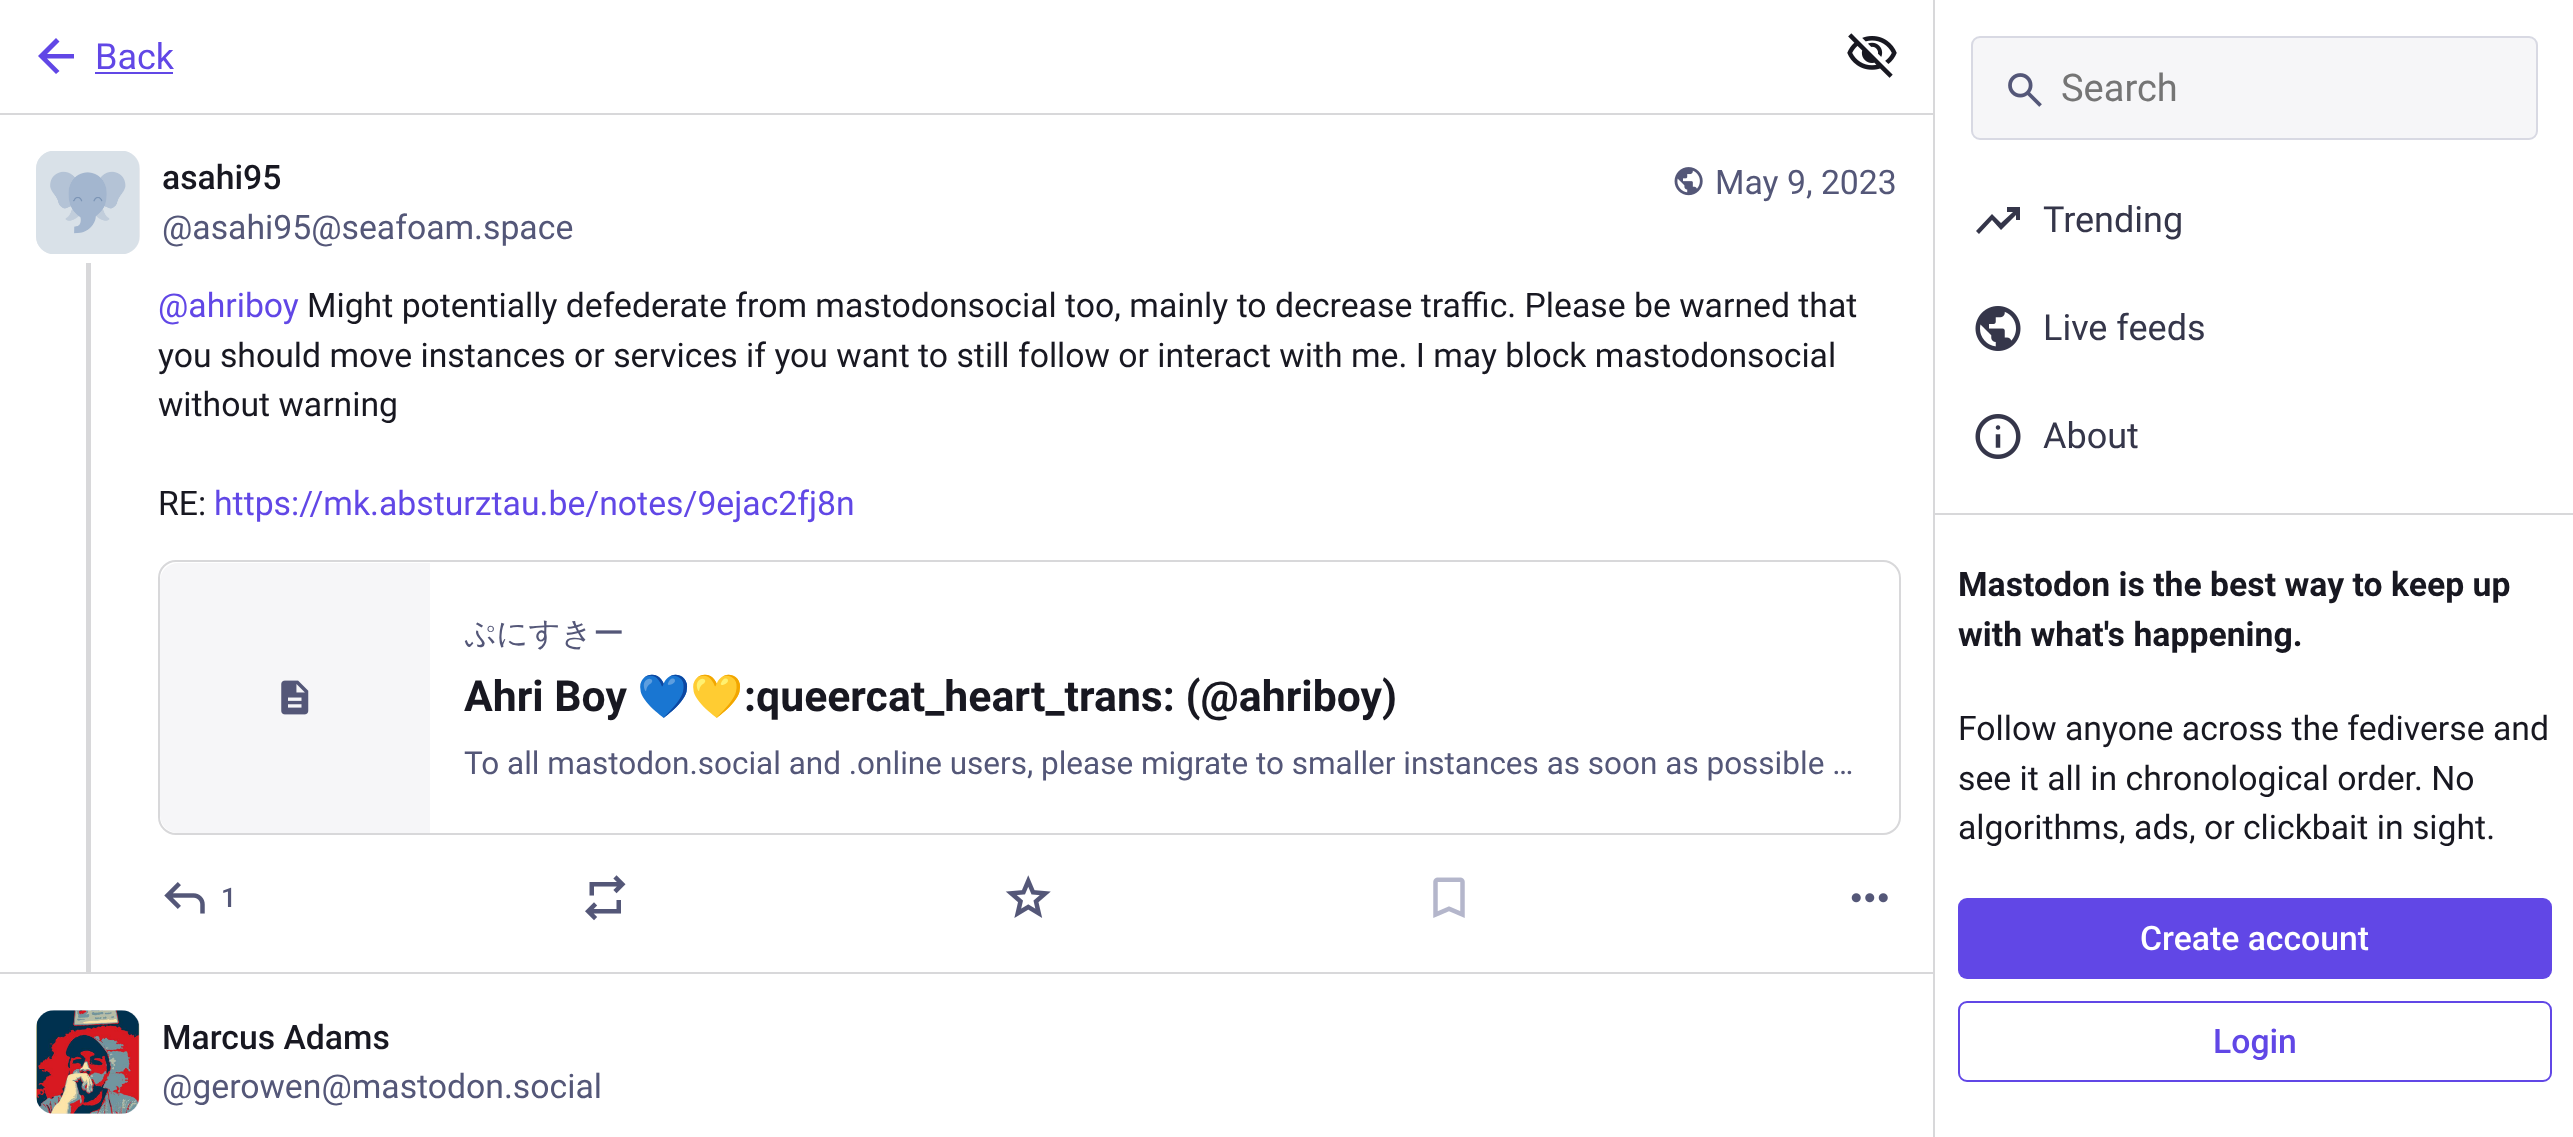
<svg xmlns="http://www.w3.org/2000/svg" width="2573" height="1137">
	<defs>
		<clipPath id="clip1"><rect x="160" y="563" width="1739" height="270" rx="16" /></clipPath>
	</defs>
	<rect width="100%" height="100%" fill="#FFFFFF" />
	<rect x="0" y="113" width="1933" height="2" fill="#D8D8DA" />
	<path d="M47 58.5L59.5 71L56 74L38 56L56 38L59.5 41.5L47 54H74V58.5Z" fill="#6147E6" />
	<text x="95" y="69" font-family="Roboto" font-size="36" fill="#6147E6">Back</text>
	<rect x="95" y="72" width="78" height="2" fill="#6147E6" />
	<image x="1847" y="33" width="50" height="45" href="assets/img1.png" />
	<rect x="36" y="151" width="104" height="103" rx="18" fill="#ECEDF1" />
	<image x="36" y="151" width="104" height="103" href="assets/img2.png" />
	<text x="162" y="189" font-family="Roboto" font-size="33.75" font-weight="500" fill="#181821">asahi95</text>
	<text x="162" y="239" font-family="Roboto" font-size="33.75" fill="#545778">@asahi95@seafoam.space</text>
	<image x="1674" y="167" width="29" height="29" href="assets/img3.png" />
	<text x="1715" y="194" font-family="Roboto" font-size="33.75" fill="#545778">May 9, 2023</text>
	<rect x="86" y="263" width="5" height="709" fill="#D8D8DA" />
	<text x="158" y="317" font-family="Roboto" font-size="33.75" fill="#6147E6">@ahriboy</text>
	<g font-family="Roboto" font-size="33.75" fill="#181821">
		<text x="307" y="317">Might potentially defederate from mastodonsocial too, mainly to decrease traffic. Please be warned that</text>
		<text x="158" y="367">you should move instances or services if you want to still follow or interact with me. I may block mastodonsocial</text>
		<text x="158" y="416">without warning</text>
		<text x="158" y="515">RE:</text>
	</g>
	<text x="214" y="515" font-family="Roboto" font-size="33.75" fill="#6147E6">https://mk.absturztau.be/notes/9ejac2fj8n</text>
	<rect x="159" y="561" width="1741" height="273" rx="17" fill="none" stroke="#D8D8DA" stroke-width="2" />
	<g clip-path="url(#clip1)">
		<path d="M178 563H430V833H178C168 833 160 825 160 815V581C160 571 168 563 178 563Z" fill="#F6F6F8" />
	</g>
	<image x="281" y="680" width="28" height="35" href="assets/img4.png" />
	<text x="464" y="644" font-family="WenQuanYi Zen Hei" font-size="31.5" font-weight="500" fill="#545778">ぷにすきー</text>
	<text x="464" y="711" font-family="Roboto" font-size="42.75" font-weight="700" fill="#181821">Ahri Boy</text>
	<text x="637" y="711" font-family="Noto Color Emoji" font-size="42.75" font-weight="700" fill="#181821">💙💛</text>
	<text x="744" y="711" font-family="Roboto" font-size="42.75" font-weight="700" fill="#181821">:queercat_heart_trans: (@ahriboy)</text>
	<text x="464" y="774" font-family="Roboto" font-size="31.5" fill="#545778">To all mastodon.social and .online users, please migrate to smaller instances as soon as possible …</text>
	<image x="164" y="882" width="41" height="32" href="assets/img5.png" />
	<text x="221" y="907" font-family="Roboto" font-size="27" font-weight="500" fill="#545778">1</text>
	<image x="585" y="875" width="41" height="46" href="assets/img6.png" />
	<image x="1005" y="875" width="46" height="43" href="assets/img7.png" />
	<image x="1433" y="877" width="32" height="41" href="assets/img8.png" />
	<image x="1851" y="893" width="37" height="10" href="assets/img9.png" />
	<rect x="0" y="972" width="1933" height="2" fill="#D8D8DA" />
	<rect x="36" y="1010" width="104" height="104" rx="18" fill="#ECEDF1" />
	<image x="36" y="1010" width="104" height="104" href="assets/img10.png" />
	<text x="162" y="1049" font-family="Roboto" font-size="33.75" font-weight="500" fill="#181821">Marcus Adams</text>
	<text x="162" y="1098" font-family="Roboto" font-size="33.75" fill="#545778">@gerowen@mastodon.social</text>
	<rect x="1933" y="0" width="2" height="1137" fill="#D8D8DA" />
	<rect x="1972" y="37" width="565" height="102" rx="8" fill="#F6F6F8" stroke="#D8D9E3" stroke-width="2" />
	<image x="2008" y="73" width="34" height="34" href="assets/img11.png" />
	<text x="2061" y="101" font-family="Roboto" font-size="38" fill="#757575">Search</text>
	<path d="M1979 234L1976 231L1992 214L2001 223L2013 212H2007V207H2020V220H2016V215L2001 230L1992 220Z" fill="#35364A" />
	<text x="2043" y="232" font-family="Roboto" font-size="36" fill="#35364A">Trending</text>
	<image x="1975" y="306" width="46" height="45" href="assets/img12.png" />
	<text x="2043" y="340" font-family="Roboto" font-size="36" fill="#35364A">Live feeds</text>
	<image x="1975" y="414" width="46" height="45" href="assets/img13.png" />
	<text x="2043" y="448" font-family="Roboto" font-size="36" fill="#35364A">About</text>
	<rect x="1935" y="513" width="638" height="2" fill="#D8D8DA" />
	<g font-family="Roboto" font-size="33.75" font-weight="700" fill="#181821">
		<text x="1958" y="596">Mastodon is the best way to keep up</text>
		<text x="1958" y="646">with what's happening.</text>
	</g>
	<g font-family="Roboto" font-size="33.75" fill="#181821">
		<text x="1958" y="740">Follow anyone across the fediverse and</text>
		<text x="1958" y="790">see it all in chronological order. No</text>
		<text x="1958" y="839">algorithms, ads, or clickbait in sight.</text>
	</g>
	<rect x="1958" y="898" width="594" height="81" rx="9" fill="#6147E6" />
	<text x="2140" y="950" font-family="Roboto" font-size="33.75" font-weight="500" fill="#FFFFFF">Create account</text>
	<rect x="1959" y="1002" width="592" height="79" rx="8" fill="none" stroke="#6147E6" stroke-width="2" />
	<text x="2213" y="1053" font-family="Roboto" font-size="33.75" font-weight="500" fill="#6147E6">Login</text>
</svg>
